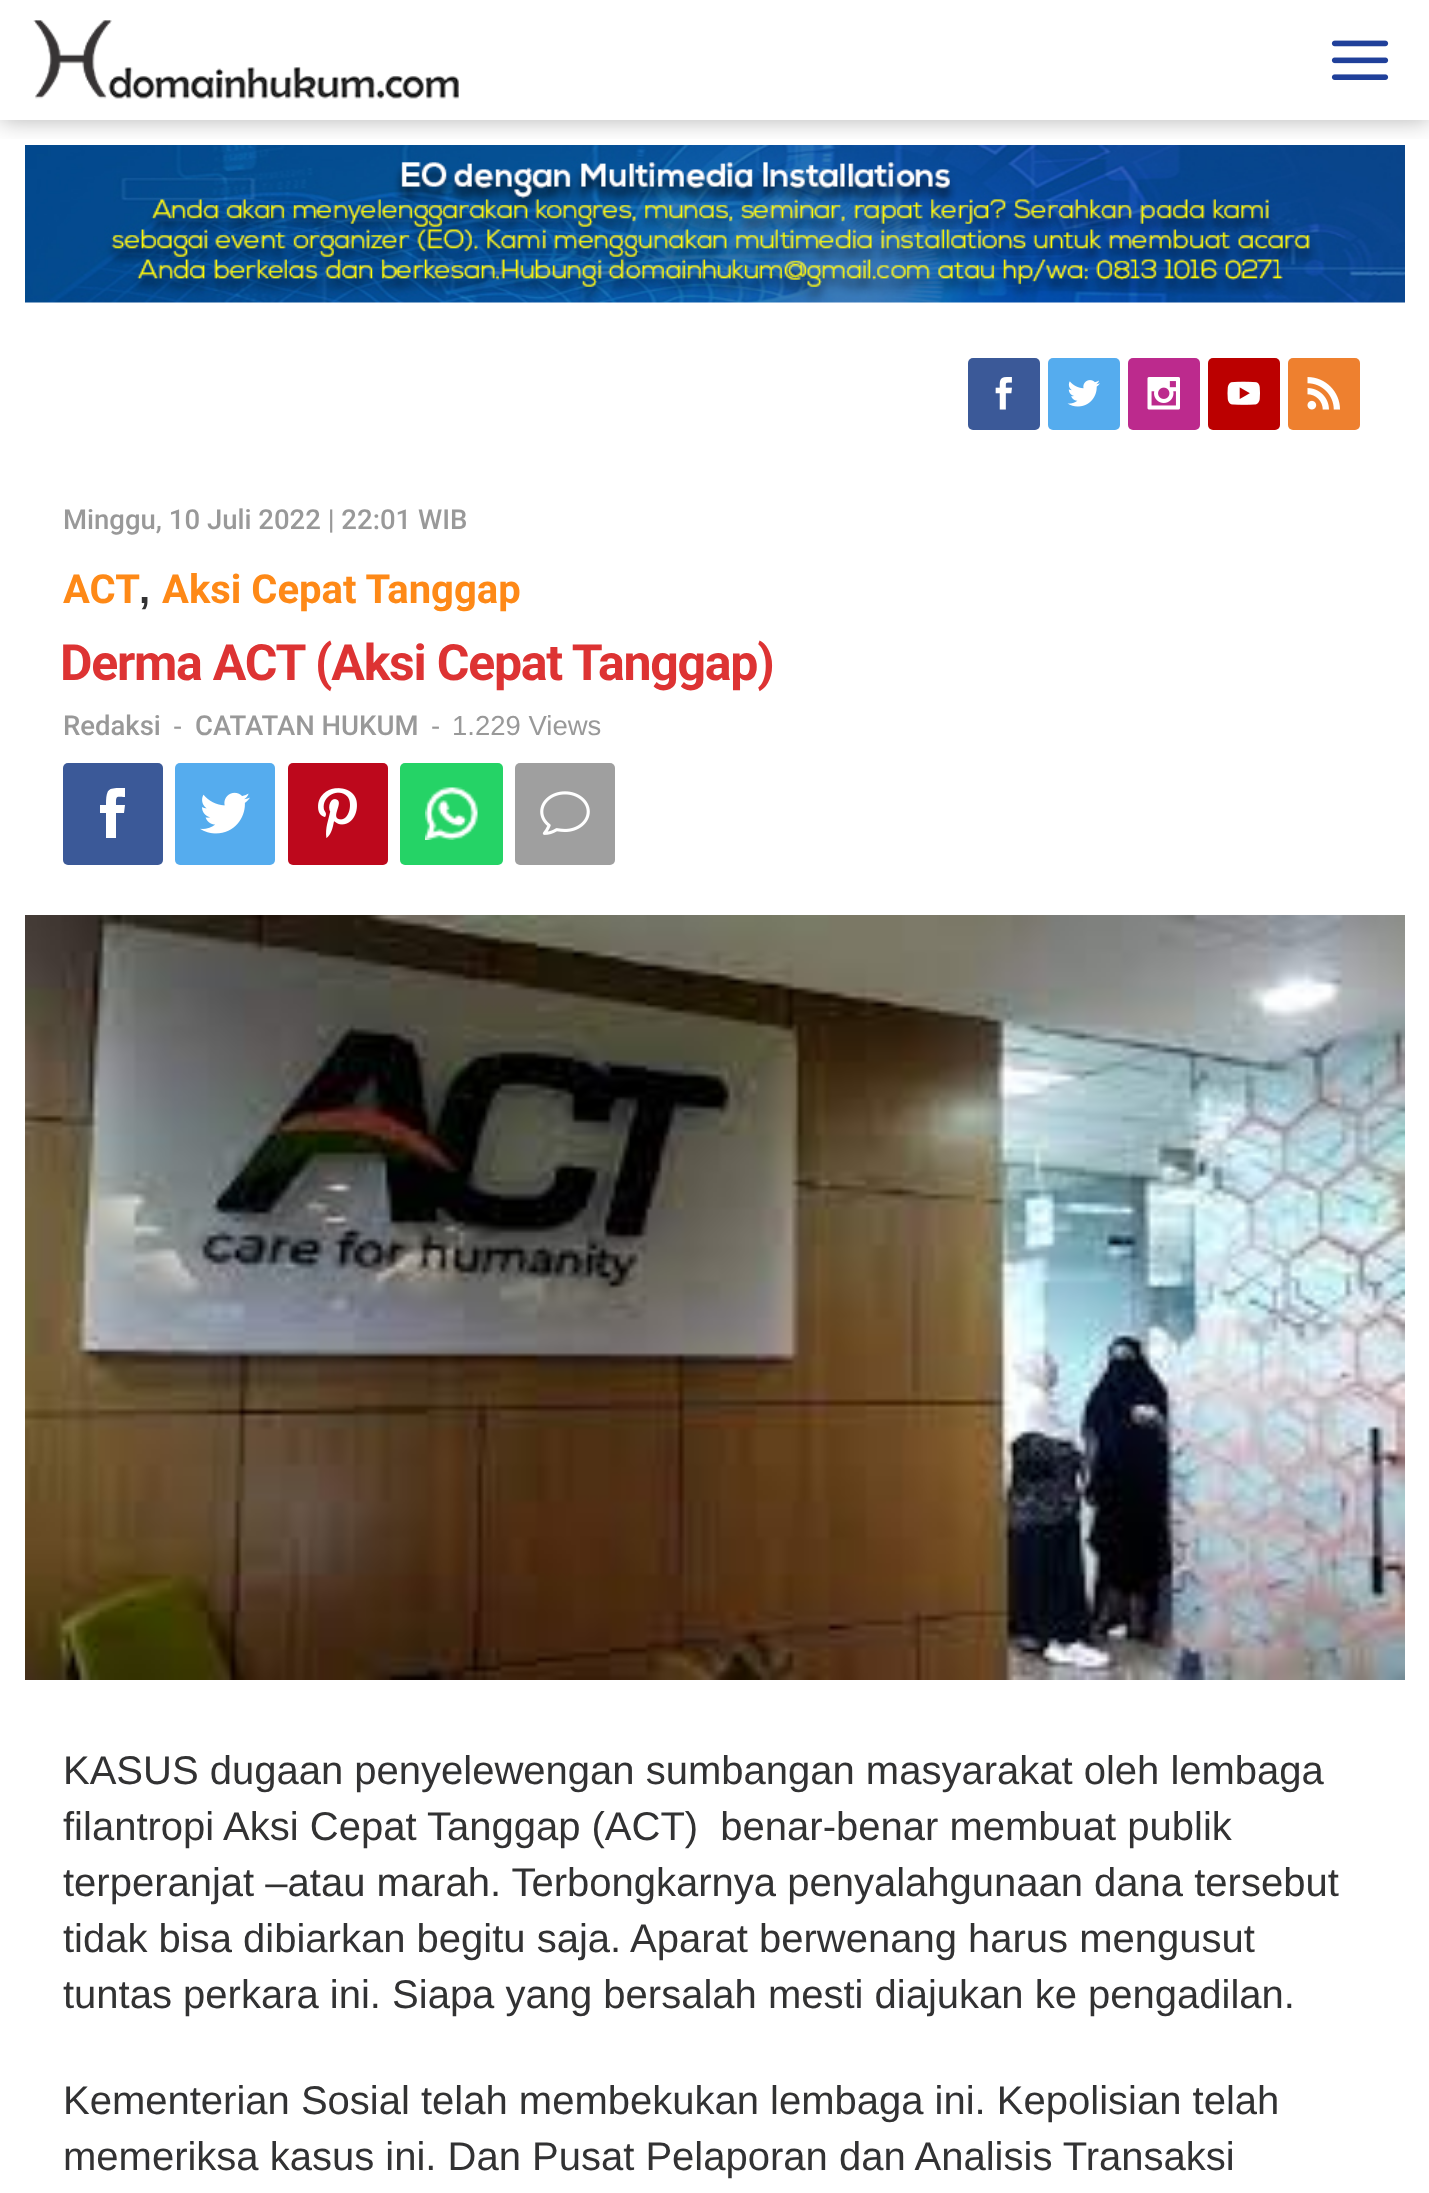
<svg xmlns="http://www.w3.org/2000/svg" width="1429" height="2193">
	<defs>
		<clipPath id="clip1"><rect x="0" y="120" width="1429" height="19" /></clipPath>
	</defs>
	<rect width="100%" height="100%" fill="#FFFFFF" />
	<g clip-path="url(#clip1)">
		<rect x="0" y="0" width="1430" height="120" fill="#000000" fill-opacity="0.3" filter="blur(12.5px)" />
	</g>
	<image x="33" y="20" width="426" height="79" href="assets/img1.png" />
	<image x="1331" y="40" width="58" height="40" href="assets/img2.png" />
	<image x="25" y="145" width="1380" height="158" href="assets/img3.png" />
	<rect x="968" y="358" width="72" height="72" rx="5" fill="#3B5998" />
	<image x="995" y="377" width="17" height="33" href="assets/img4.png" />
	<rect x="1048" y="358" width="72" height="72" rx="5" fill="#55ACEE" />
	<image x="1067" y="380" width="33" height="27" href="assets/img5.png" />
	<rect x="1128" y="358" width="72" height="72" rx="5" fill="#BC2A8D" />
	<image x="1147" y="377" width="33" height="33" href="assets/img6.png" />
	<rect x="1208" y="358" width="72" height="72" rx="5" fill="#BB0000" />
	<image x="1227" y="381" width="33" height="24" href="assets/img7.png" />
	<rect x="1288" y="358" width="72" height="72" rx="5" fill="#EE802F" />
	<image x="1307" y="377" width="33" height="33" href="assets/img8.png" />
	<text x="63" y="529" font-family="Roboto" font-size="27.5" font-weight="500" fill="#999999">Minggu, 10 Juli 2022 | 22:01 WIB</text>
	<text x="63" y="603" font-family="Roboto" font-size="40" font-weight="700" fill="#FE8917">ACT</text>
	<text x="139" y="603" font-family="Liberation Sans" font-size="40" font-weight="700" fill="#323233">,</text>
	<text x="162" y="603" font-family="Roboto" font-size="40" font-weight="700" fill="#FE8917">Aksi Cepat Tanggap</text>
	<text x="60" y="680" font-family="Roboto" font-size="50" font-weight="700" letter-spacing="-1.25" fill="#DD3333">Derma ACT (Aksi Cepat Tanggap)</text>
	<text x="63" y="735" font-family="Roboto" font-size="27.5" font-weight="500" fill="#999999">Redaksi</text>
	<text x="173" y="735" font-family="Liberation Sans" font-size="27.5" fill="#999999">-</text>
	<text x="195" y="735" font-family="Roboto" font-size="27.5" font-weight="500" fill="#999999">CATATAN HUKUM</text>
	<g font-family="Liberation Sans" font-size="27.5" fill="#999999">
		<text x="431" y="735">-</text>
		<text x="452" y="735">1.229 Views</text>
	</g>
	<rect x="63" y="763" width="100" height="102" rx="5" fill="#3B5998" />
	<path d="M106 838V813H100V805H106C106 787 109 788 125 788V797C116 797 116 795 116 805H125L124 813H116V838Z" fill="#FFFFFF" />
	<rect x="175" y="763" width="100" height="102" rx="5" fill="#55ACEE" />
	<image x="200" y="792" width="50" height="42" href="assets/img9.png" />
	<rect x="288" y="763" width="100" height="102" rx="5" fill="#BD081C" />
	<image x="318" y="788" width="39" height="50" href="assets/img10.png" />
	<rect x="400" y="763" width="103" height="102" rx="5" fill="#25D366" />
	<image x="425" y="787" width="53" height="53" href="assets/img11.png" />
	<rect x="515" y="763" width="100" height="102" rx="5" fill="#9F9F9F" />
	<image x="540" y="791" width="50" height="44" href="assets/img12.png" />
	<image x="25" y="915" width="1380" height="765" href="assets/img13.png" />
	<g font-family="Liberation Sans" font-size="40" fill="#323233">
		<text x="63" y="1784">KASUS dugaan penyelewengan sumbangan masyarakat oleh lembaga</text>
		<text x="63" y="1840" xml:space="preserve">filantropi Aksi Cepat Tanggap (ACT)  benar-benar membuat publik</text>
		<text x="63" y="1896">terperanjat –atau marah. Terbongkarnya penyalahgunaan dana tersebut</text>
		<text x="63" y="1952">tidak bisa dibiarkan begitu saja. Aparat berwenang harus mengusut</text>
		<text x="63" y="2008">tuntas perkara ini. Siapa yang bersalah mesti diajukan ke pengadilan.</text>
		<text x="63" y="2114">Kementerian Sosial telah membekukan lembaga ini. Kepolisian telah</text>
		<text x="63" y="2170">memeriksa kasus ini. Dan Pusat Pelaporan dan Analisis Transaksi</text>
	</g>
</svg>
